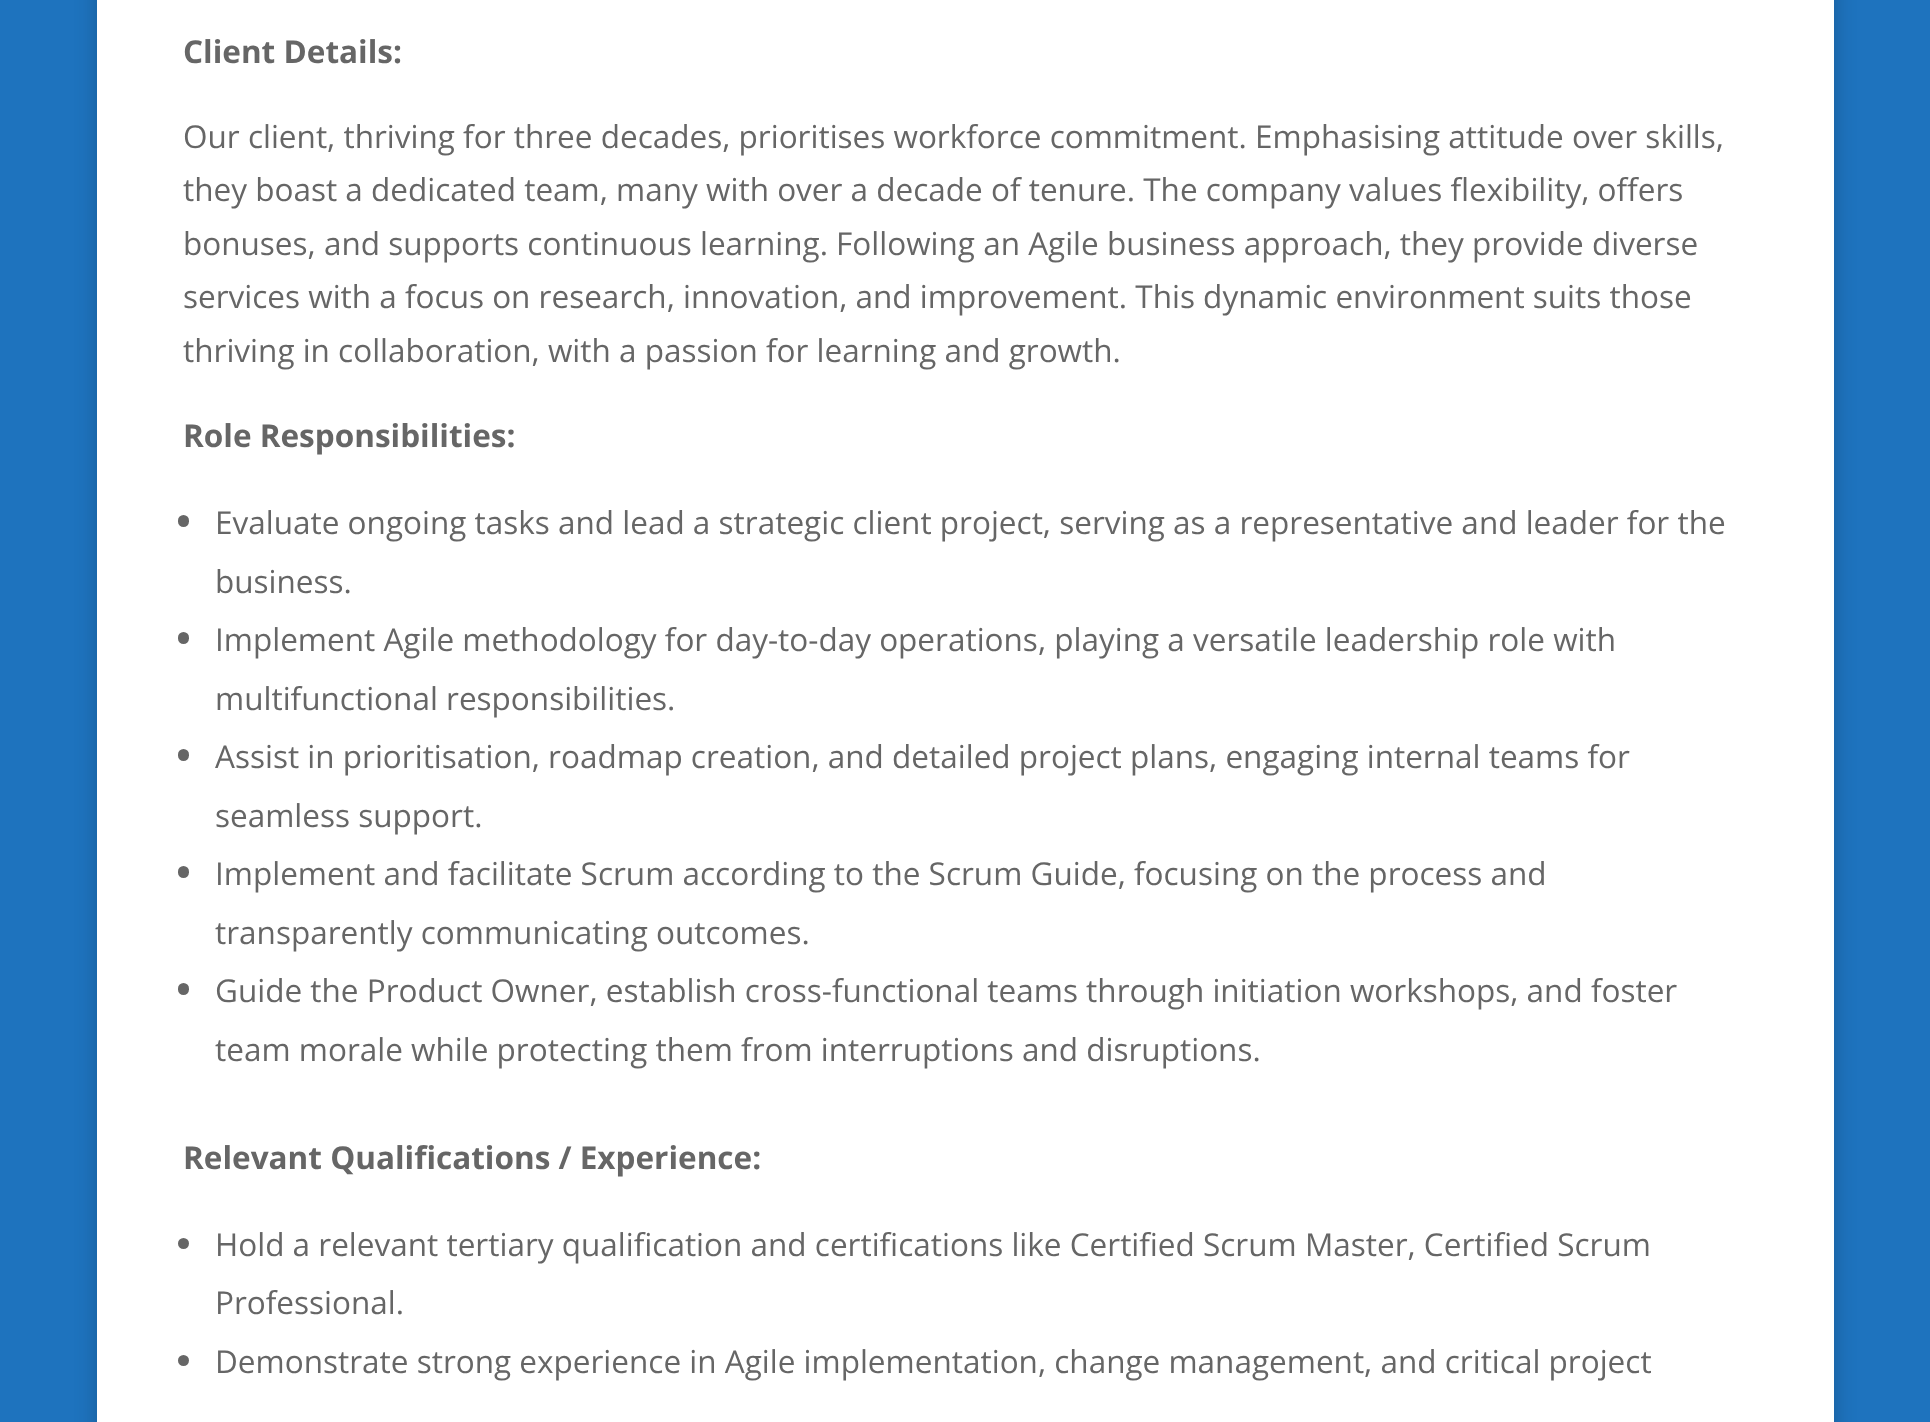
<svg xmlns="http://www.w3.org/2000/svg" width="1930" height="1422">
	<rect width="100%" height="100%" fill="#1E73BE" />
	<rect x="97" y="-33" width="1737" height="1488" fill="#000000" fill-opacity="0.2" filter="blur(11px)" />
	<rect x="97" y="0" width="1737" height="1422" fill="#FFFFFF" />
	<text x="183" y="63" font-family="Open Sans" font-size="31.5" font-weight="700" fill="#666666">Client Details:</text>
	<g font-family="Open Sans" font-size="31.5" fill="#666666">
		<text x="183" y="148">Our client, thriving for three decades, prioritises workforce commitment. Emphasising attitude over skills,</text>
		<text x="183" y="201">they boast a dedicated team, many with over a decade of tenure. The company values flexibility, offers</text>
		<text x="183" y="255">bonuses, and supports continuous learning. Following an Agile business approach, they provide diverse</text>
		<text x="183" y="308">services with a focus on research, innovation, and improvement. This dynamic environment suits those</text>
		<text x="183" y="362">thriving in collaboration, with a passion for learning and growth.</text>
	</g>
	<text x="183" y="447" font-family="Open Sans" font-size="31.5" font-weight="700" fill="#666666">Role Responsibilities:</text>
	<rect x="178" y="515" width="11" height="12" rx="5.5" fill="#666666" />
	<g font-family="Open Sans" font-size="31.5" fill="#666666">
		<text x="215" y="534">Evaluate ongoing tasks and lead a strategic client project, serving as a representative and leader for the</text>
		<text x="215" y="593">business.</text>
	</g>
	<rect x="178" y="632" width="11" height="12" rx="5.5" fill="#666666" />
	<g font-family="Open Sans" font-size="31.5" fill="#666666">
		<text x="215" y="651">Implement Agile methodology for day-to-day operations, playing a versatile leadership role with</text>
		<text x="215" y="710">multifunctional responsibilities.</text>
	</g>
	<rect x="178" y="749" width="11" height="12" rx="5.5" fill="#666666" />
	<g font-family="Open Sans" font-size="31.5" fill="#666666">
		<text x="215" y="768">Assist in prioritisation, roadmap creation, and detailed project plans, engaging internal teams for</text>
		<text x="215" y="827">seamless support.</text>
	</g>
	<rect x="178" y="866" width="11" height="12" rx="5.5" fill="#666666" />
	<g font-family="Open Sans" font-size="31.5" fill="#666666">
		<text x="215" y="885">Implement and facilitate Scrum according to the Scrum Guide, focusing on the process and</text>
		<text x="215" y="944">transparently communicating outcomes.</text>
	</g>
	<rect x="178" y="983" width="11" height="12" rx="5.5" fill="#666666" />
	<g font-family="Open Sans" font-size="31.5" fill="#666666">
		<text x="215" y="1002">Guide the Product Owner, establish cross-functional teams through initiation workshops, and foster</text>
		<text x="215" y="1061">team morale while protecting them from interruptions and disruptions.</text>
	</g>
	<text x="183" y="1169" font-family="Open Sans" font-size="31.5" font-weight="700" fill="#666666">Relevant Qualifications / Experience:</text>
	<circle cx="183.5" cy="1243.5" r="5.5" fill="#666666" />
	<g font-family="Open Sans" font-size="31.5" fill="#666666">
		<text x="215" y="1256">Hold a relevant tertiary qualification and certifications like Certified Scrum Master, Certified Scrum</text>
		<text x="215" y="1314">Professional.</text>
	</g>
	<circle cx="183.5" cy="1360.5" r="5.5" fill="#666666" />
	<text x="215" y="1373" font-family="Open Sans" font-size="31.5" fill="#666666">Demonstrate strong experience in Agile implementation, change management, and critical project</text>
</svg>
